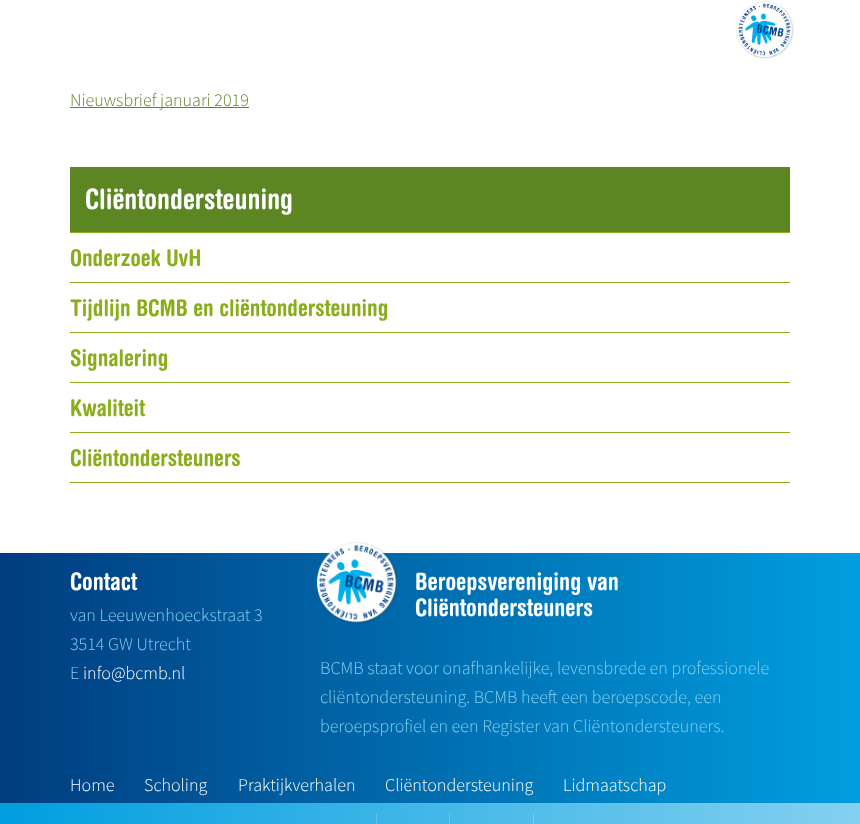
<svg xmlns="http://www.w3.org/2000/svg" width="860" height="824">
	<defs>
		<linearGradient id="g1" gradientUnits="userSpaceOnUse" x1="0" y1="678" x2="860" y2="678"><stop offset="0" stop-color="#003D7F" /><stop offset="1" stop-color="#009EE0" /></linearGradient>
		<linearGradient id="g2" gradientUnits="userSpaceOnUse" x1="0" y1="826" x2="860" y2="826"><stop offset="0" stop-color="#009EE0" /><stop offset="1" stop-color="#84D0F0" /></linearGradient>
	</defs>
	<rect width="100%" height="100%" fill="#FFFFFF" />
	<image x="736" y="1" width="58" height="58" href="assets/img1.png" />
	<rect x="70" y="107" width="179" height="1" fill="#5C8622" />
	<text x="70" y="106" font-family="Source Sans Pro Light" font-size="18" font-weight="300" fill="#5C8622">Nieuwsbrief januari 2019</text>
	<rect x="70" y="167" width="720" height="65" fill="#5C8622" />
	<text x="85" y="209" font-family="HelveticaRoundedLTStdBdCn" font-size="28" font-weight="700" fill="#FFFFFF">Cliëntondersteuning</text>
	<rect x="70" y="232" width="720" height="1" fill="#8AAE1B" />
	<rect x="70" y="282" width="720" height="1" fill="#8AAE1B" />
	<text x="70" y="266" font-family="HelveticaRoundedLTStdBdCn" font-size="23" font-weight="700" fill="#8AAE1B">Onderzoek UvH</text>
	<rect x="70" y="332" width="720" height="1" fill="#8AAE1B" />
	<text x="70" y="316" font-family="HelveticaRoundedLTStdBdCn" font-size="23" font-weight="700" fill="#8AAE1B">Tijdlijn BCMB en cliëntondersteuning</text>
	<rect x="70" y="382" width="720" height="1" fill="#8AAE1B" />
	<text x="70" y="366" font-family="HelveticaRoundedLTStdBdCn" font-size="23" font-weight="700" fill="#8AAE1B">Signalering</text>
	<rect x="70" y="432" width="720" height="1" fill="#8AAE1B" />
	<text x="70" y="416" font-family="HelveticaRoundedLTStdBdCn" font-size="23" font-weight="700" fill="#8AAE1B">Kwaliteit</text>
	<rect x="70" y="482" width="720" height="1" fill="#8AAE1B" />
	<text x="70" y="466" font-family="HelveticaRoundedLTStdBdCn" font-size="23" font-weight="700" fill="#8AAE1B">Cliëntondersteuners</text>
	<rect x="0" y="553" width="860" height="250" fill="url(#g1)" />
	<text x="70" y="590" font-family="HelveticaRoundedLTStdBdCn" font-size="24" font-weight="700" fill="#FFFFFF">Contact</text>
	<g font-family="Source Sans Pro Light" font-size="18" font-weight="300" fill="#84D0F0">
		<text x="70" y="621">van Leeuwenhoeckstraat 3</text>
		<text x="70" y="650">3514 GW Utrecht</text>
		<text x="70" y="679">E</text>
	</g>
	<text x="83" y="679" font-family="Source Sans Pro Light" font-size="18" font-weight="300" fill="#FFFFFF">info@bcmb.nl</text>
	<image x="316" y="542" width="82" height="82" href="assets/img2.png" />
	<g font-family="HelveticaRoundedLTStdBdCn" font-size="24" font-weight="700" fill="#FFFFFF">
		<text x="415" y="590">Beroepsvereniging van</text>
		<text x="415" y="616">Cliëntondersteuners</text>
	</g>
	<g font-family="Source Sans Pro Light" font-size="18" font-weight="300" fill="#84D0F0">
		<text x="320" y="674">BCMB staat voor onafhankelijke, levensbrede en professionele</text>
		<text x="320" y="703">cliëntondersteuning. BCMB heeft een beroepscode, een</text>
		<text x="320" y="732">beroepsprofiel en een Register van Cliëntondersteuners.</text>
	</g>
	<g font-family="Source Sans Pro Light" font-size="18" font-weight="300" fill="#FFFFFF">
		<text x="70" y="791">Home</text>
		<text x="144" y="791">Scholing</text>
		<text x="238" y="791">Praktijkverhalen</text>
		<text x="385" y="791">Cliëntondersteuning</text>
		<text x="563" y="791">Lidmaatschap</text>
	</g>
	<rect x="0" y="803" width="860" height="21" fill="url(#g2)" />
	<rect x="376" y="814" width="1" height="10" fill="#61C3EC" />
	<rect x="449" y="814" width="1" height="10" fill="#6AC6ED" />
	<rect x="533" y="814" width="1" height="10" fill="#75CAEE" />
</svg>
